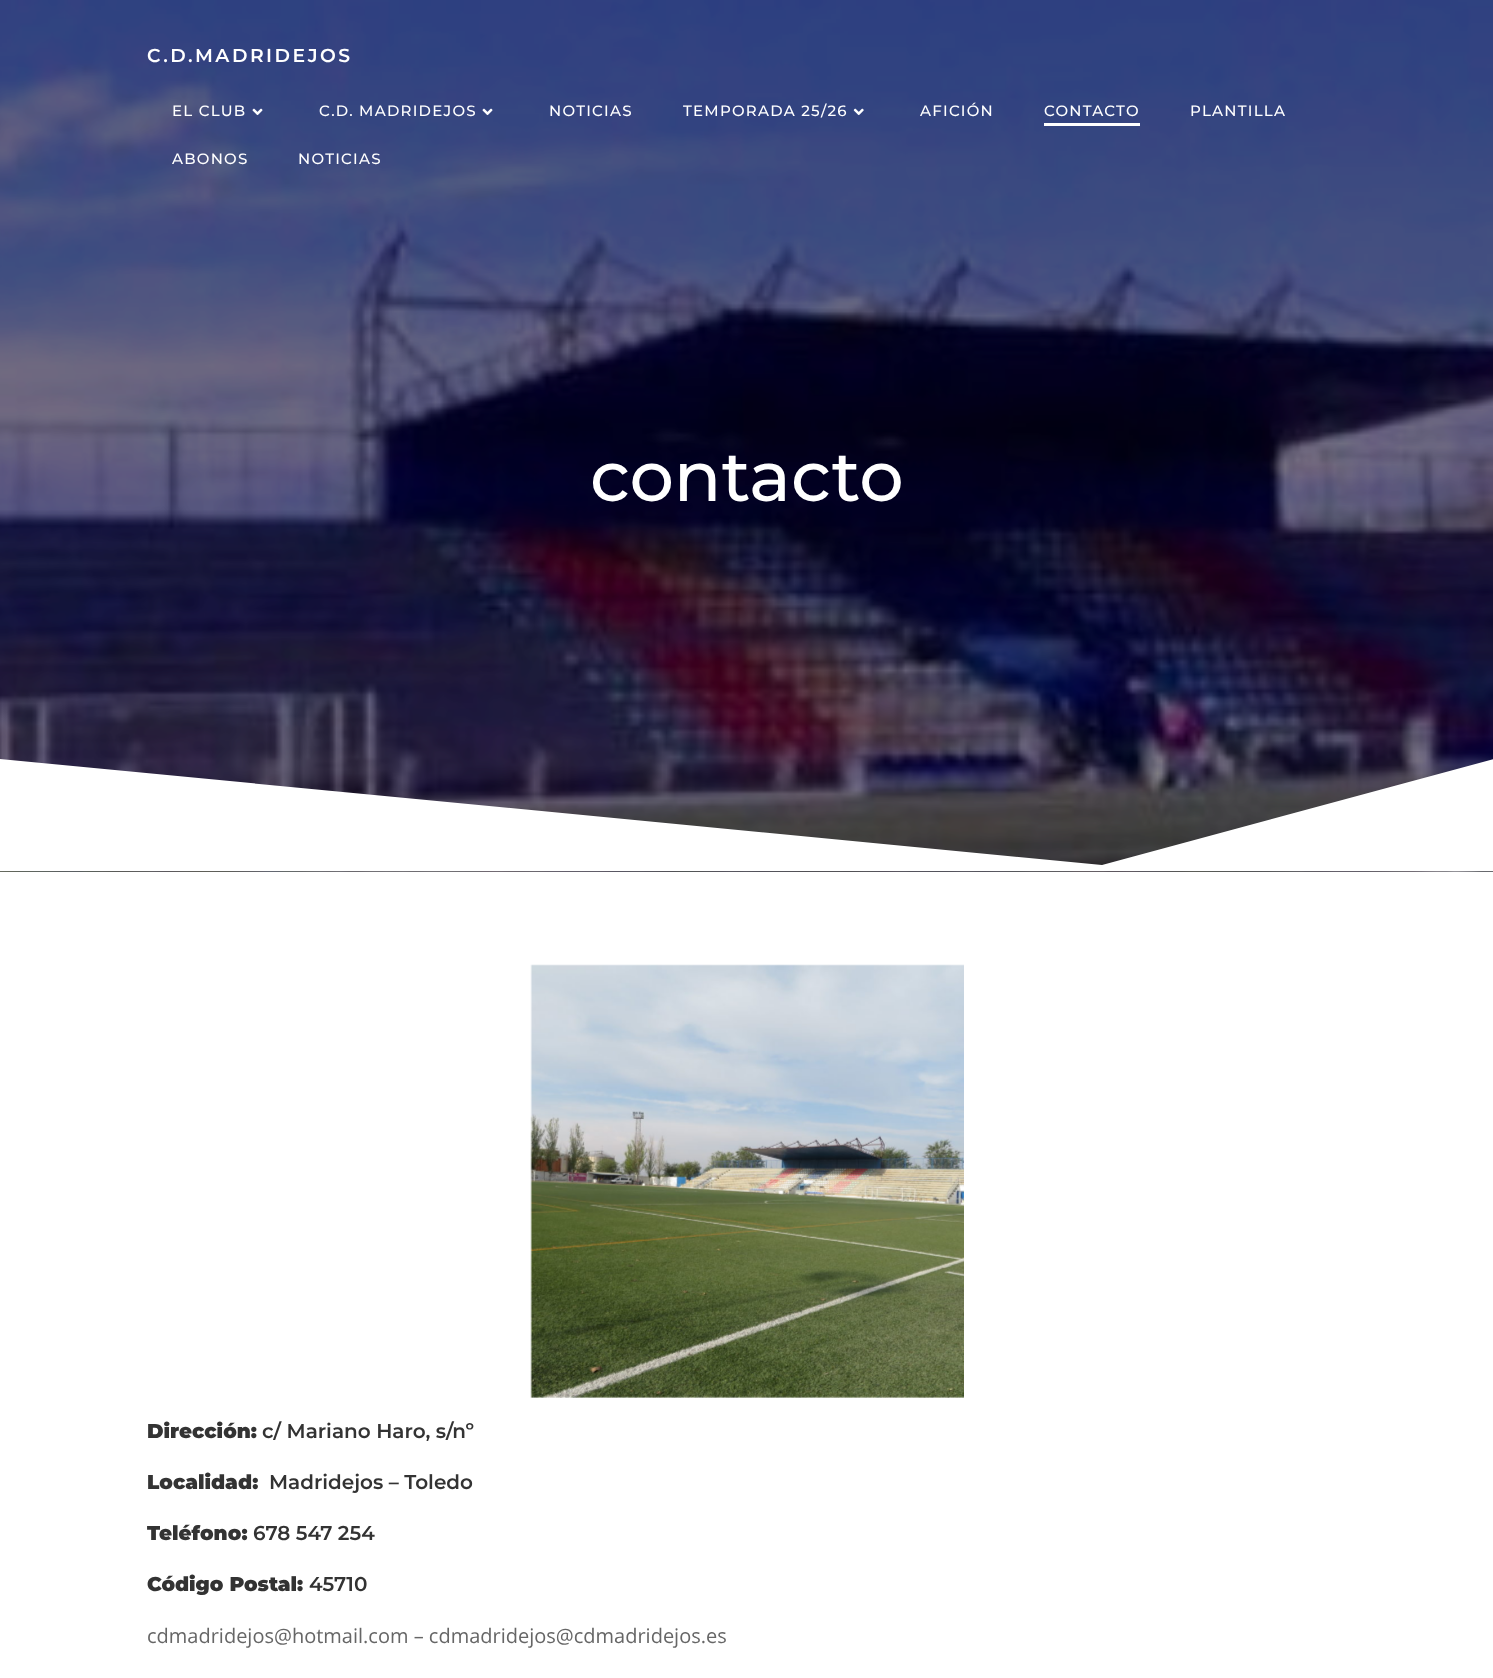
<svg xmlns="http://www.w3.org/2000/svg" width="1493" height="1678">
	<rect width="100%" height="100%" fill="#FFFFFF" />
	<image x="0" y="0" width="1493" height="872" href="assets/img4.png" />
	<text x="147" y="62" font-family="Montserrat" font-size="18.75" font-weight="600" letter-spacing="2.5" fill="#FFFFFF">C.D.MADRIDEJOS</text>
	<text x="172" y="116" font-family="Montserrat" font-size="15" font-weight="500" letter-spacing="1.25" fill="#FFFFFF">EL CLUB</text>
	<image x="252" y="108" width="11" height="8" href="assets/img1.png" />
	<text x="319" y="116" font-family="Montserrat" font-size="15" font-weight="500" letter-spacing="1.25" fill="#FFFFFF">C.D. MADRIDEJOS</text>
	<image x="482" y="108" width="11" height="8" href="assets/img2.png" />
	<g font-family="Montserrat" font-size="15" font-weight="500" letter-spacing="1.25" fill="#FFFFFF">
		<text x="549" y="116">NOTICIAS</text>
		<text x="683" y="116">TEMPORADA 25/26</text>
	</g>
	<image x="853" y="108" width="11" height="8" href="assets/img3.png" />
	<g font-family="Montserrat" font-size="15" font-weight="500" letter-spacing="1.25" fill="#FFFFFF">
		<text x="920" y="116">AFICIÓN</text>
		<text x="1044" y="116">CONTACTO</text>
	</g>
	<rect x="1044" y="123" width="96" height="3" fill="#FFFFFF" />
	<g font-family="Montserrat" font-size="15" font-weight="500" letter-spacing="1.25" fill="#FFFFFF">
		<text x="1190" y="116">PLANTILLA</text>
		<text x="172" y="164">ABONOS</text>
		<text x="298" y="164">NOTICIAS</text>
	</g>
	<text x="590" y="501" font-family="Montserrat" font-size="70" font-weight="500" fill="#FFFFFF">contacto</text>
	<path d="M1102 865L0 759V871H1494V759Z" fill="#FFFFFF" />
	<image x="530" y="964" width="434" height="434" href="assets/img5.png" />
	<text x="147" y="1438" font-family="Montserrat" font-size="20" font-weight="900" fill="#333333">Dirección:</text>
	<text x="262" y="1438" font-family="Montserrat" font-size="20" font-weight="600" fill="#333333">c/ Mariano Haro, s/nº</text>
	<text x="147" y="1489" font-family="Montserrat" font-size="20" font-weight="900" fill="#333333">Localidad:</text>
	<text x="269" y="1489" font-family="Montserrat" font-size="20" font-weight="600" fill="#333333">Madridejos – Toledo</text>
	<text x="147" y="1540" font-family="Montserrat" font-size="20" font-weight="900" fill="#333333">Teléfono:</text>
	<text x="253" y="1540" font-family="Montserrat" font-size="20" font-weight="600" fill="#333333">678 547 254</text>
	<text x="147" y="1591" font-family="Montserrat" font-size="20" font-weight="900" fill="#333333">Código Postal:</text>
	<text x="309" y="1591" font-family="Montserrat" font-size="20" font-weight="600" fill="#333333">45710</text>
	<text x="147" y="1643" font-family="Open Sans" font-size="20" fill="#666666">cdmadridejos@hotmail.com – cdmadridejos@cdmadridejos.es</text>
</svg>
